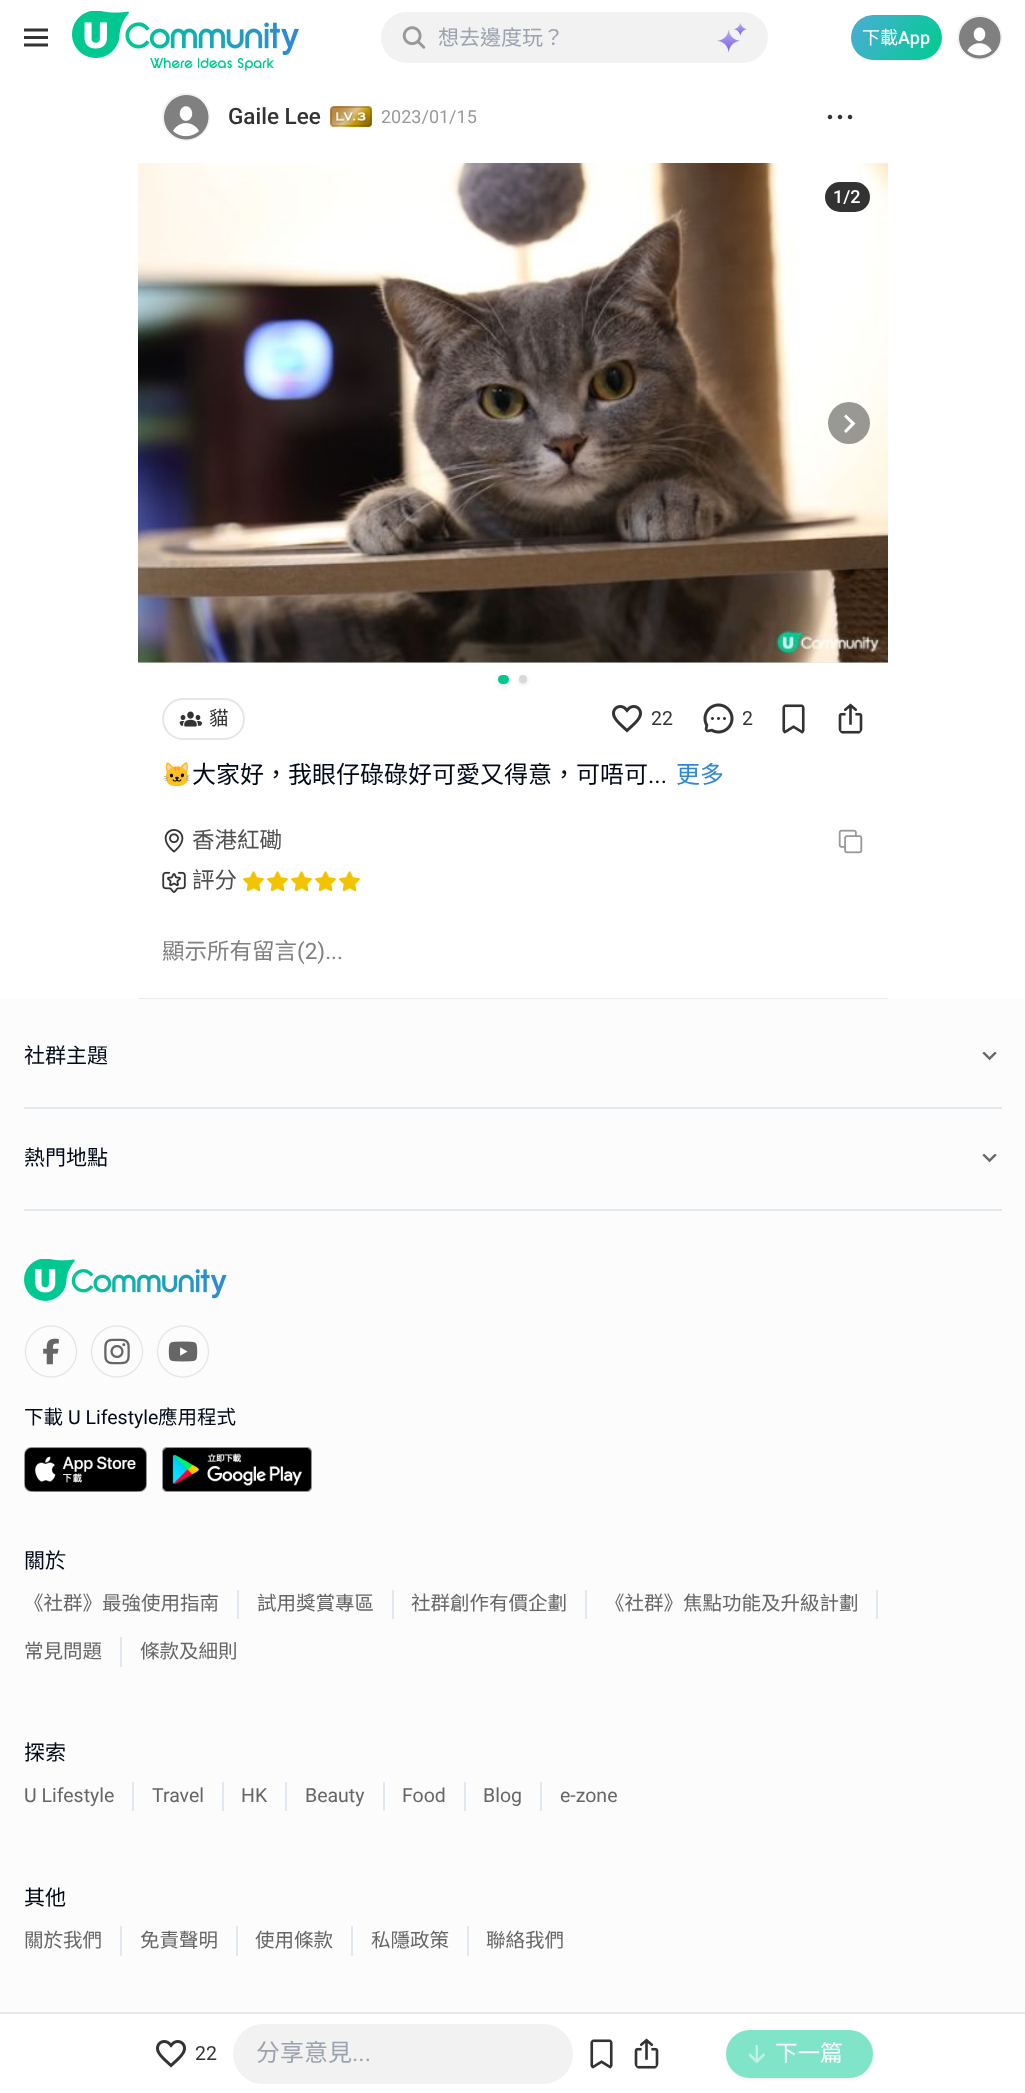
<svg xmlns="http://www.w3.org/2000/svg" width="1025" height="2093">
	<defs>
		<linearGradient id="g1" gradientUnits="userSpaceOnUse" x1="850" y1="16" x2="942" y2="59"><stop offset="0" stop-color="#4BADD6" /><stop offset="1" stop-color="#00CC8F" /></linearGradient>
	</defs>
	<rect width="100%" height="100%" fill="#FFFFFF" />
	<image x="24" y="28" width="24" height="19" href="assets/img1.png" />
	<image x="72" y="11" width="227" height="60" href="assets/img2.png" />
	<rect x="381" y="12" width="387" height="51" rx="25.5" fill="#F2F2F2" />
	<image x="402" y="26" width="24" height="23" href="assets/img3.png" />
	<text x="438" y="45" font-family="Noto Sans CJK HK" font-size="21" fill="#9CA3AF">想去邊度玩？</text>
	<image x="717" y="23" width="30" height="30" href="assets/img4.png" />
	<rect x="851" y="15" width="91" height="45" rx="22.5" fill="url(#g1)" />
	<text x="862" y="44" font-family="Noto Sans CJK HK" font-size="18" fill="#FFFFFF">下載</text>
	<text x="898" y="44" font-family="Roboto" font-size="18" font-weight="500" fill="#FFFFFF">App</text>
	<circle cx="979.5" cy="37.5" r="21.5" fill="none" stroke="#F2F2F2" stroke-width="2" />
	<image x="959" y="17" width="42" height="42" href="assets/img5.png" />
	<rect x="138" y="998" width="750" height="1" fill="#EBEBEB" />
	<circle cx="186" cy="117" r="23" fill="none" stroke="#F2F2F2" stroke-width="2" />
	<image x="164" y="95" width="45" height="45" href="assets/img6.png" />
	<text x="228" y="124" font-family="Roboto" font-size="22.5" font-weight="500" fill="#333333">Gaile Lee</text>
	<image x="330" y="106" width="42" height="21" href="assets/img7.png" />
	<text x="381" y="123" font-family="Roboto" font-size="18" fill="#999999">2023/01/15</text>
	<image x="827" y="114" width="26" height="6" href="assets/img8.png" />
	<rect x="138" y="662" width="750" height="1" fill="#E8E9EA" />
	<image x="138" y="163" width="750" height="500" href="assets/img9.png" />
	<rect x="825" y="182" width="45" height="30" rx="15" fill="#000000" fill-opacity="0.8" />
	<text x="833" y="203" font-family="Roboto" font-size="18" font-weight="500" fill="#FFFFFF">1/2</text>
	<circle cx="849" cy="423" r="21" fill="#000000" fill-opacity="0.4" />
	<path d="M846 433L844 431L851 423.5L844 416.5L846 414.5L855.5 423.5Z" fill="#FFFFFF" fill-rule="evenodd" />
	<rect x="501" y="678" width="5" height="6" rx="2.5" fill="#000000" fill-opacity="0.1" filter="blur(2px)" />
	<rect x="498" y="677" width="11" height="9" rx="4.5" fill="#000000" fill-opacity="0.1" filter="blur(3px)" />
	<rect x="498" y="675" width="11" height="9" rx="4.5" fill="#00C891" />
	<rect x="521" y="678" width="5" height="5" rx="2.5" fill="#000000" fill-opacity="0.1" filter="blur(1.5px)" />
	<rect x="519" y="677" width="8" height="7" rx="3.5" fill="#000000" fill-opacity="0.1" filter="blur(2px)" />
	<circle cx="523" cy="679" r="4" fill="#D8D8D8" />
	<rect x="163" y="699" width="81" height="40" rx="20" fill="none" stroke="#E6E6E6" stroke-width="2" />
	<image x="179" y="711" width="24" height="16" href="assets/img10.png" />
	<text x="209" y="725" font-family="Noto Sans CJK HK" font-size="19.5" fill="#333333">貓</text>
	<image x="612" y="705" width="30" height="28" href="assets/img11.png" />
	<text x="651" y="725" font-family="Roboto" font-size="19.5" fill="#333333">22</text>
	<image x="703" y="703" width="31" height="31" href="assets/img12.png" />
	<text x="742" y="725" font-family="Roboto" font-size="19.5" fill="#333333">2</text>
	<image x="782" y="704" width="23" height="30" href="assets/img13.png" />
	<image x="838" y="703" width="25" height="31" href="assets/img14.png" />
	<text x="162" y="783" font-family="Noto Color Emoji" font-size="24" fill="#020817">🐱</text>
	<text x="192" y="783" font-family="Noto Sans CJK HK" font-size="24" fill="#020817">大家好，我眼仔碌碌好可愛又得意，可唔可</text>
	<text x="648" y="783" font-family="Roboto" font-size="24" fill="#020817">...</text>
	<text x="676" y="783" font-family="Noto Sans CJK HK" font-size="24" fill="#3087D9">更多</text>
	<image x="164" y="829" width="20" height="24" href="assets/img15.png" />
	<text x="192" y="848" font-family="Noto Sans CJK HK" font-size="22.5" fill="#505050">香港紅磡</text>
	<image x="838" y="829" width="25" height="25" href="assets/img16.png" />
	<image x="162" y="871" width="24" height="22" href="assets/img17.png" />
	<text x="192" y="888" font-family="Noto Sans CJK HK" font-size="22.5" fill="#505050">評分</text>
	<image x="243" y="871" width="21" height="21" href="assets/img18.png" />
	<image x="267" y="871" width="21" height="21" href="assets/img18.png" />
	<image x="291" y="871" width="21" height="21" href="assets/img18.png" />
	<image x="315" y="871" width="21" height="21" href="assets/img18.png" />
	<image x="339" y="871" width="21" height="21" href="assets/img18.png" />
	<text x="162" y="959" font-family="Noto Sans CJK HK" font-size="22.5" fill="#808080">顯示所有留言</text>
	<text x="297" y="959" font-family="Roboto" font-size="22.5" fill="#808080">(2)...</text>
	<rect x="0" y="999" width="1025" height="1013" fill="#FCFCFC" />
	<text x="24" y="1063" font-family="Noto Sans CJK HK" font-size="21" fill="#020817">社群主題</text>
	<image x="982" y="1052" width="15" height="9" href="assets/img19.png" />
	<rect x="24" y="1107" width="978" height="2" fill="#E2E8F0" />
	<text x="24" y="1165" font-family="Noto Sans CJK HK" font-size="21" fill="#020817">熱門地點</text>
	<image x="982" y="1154" width="15" height="9" href="assets/img19.png" />
	<rect x="24" y="1209" width="978" height="2" fill="#E2E8F0" />
	<image x="24" y="1259" width="203" height="42" href="assets/img20.png" />
	<image x="24" y="1325" width="54" height="53" href="assets/img21.png" />
	<image x="90" y="1325" width="54" height="53" href="assets/img22.png" />
	<image x="156" y="1325" width="54" height="53" href="assets/img23.png" />
	<text x="24" y="1424" font-family="Noto Sans CJK HK" font-size="19.5" fill="#020817">下載</text>
	<text x="68" y="1424" font-family="Roboto" font-size="19.5" fill="#020817">U Lifestyle</text>
	<text x="158" y="1424" font-family="Noto Sans CJK HK" font-size="19.5" fill="#020817">應用程式</text>
	<image x="24" y="1447" width="123" height="45" href="assets/img24.png" />
	<image x="162" y="1447" width="150" height="45" href="assets/img25.png" />
	<text x="24" y="1568" font-family="Noto Sans CJK HK" font-size="21" fill="#020817">關於</text>
	<rect x="237" y="1590" width="2" height="29" fill="#E2E8F0" />
	<text x="24" y="1610" font-family="Noto Sans CJK HK" font-size="19.5" fill="#666666">《社群》最強使用指南</text>
	<rect x="392" y="1590" width="2" height="29" fill="#E2E8F0" />
	<text x="257" y="1610" font-family="Noto Sans CJK HK" font-size="19.5" fill="#666666">試用獎賞專區</text>
	<rect x="585" y="1590" width="2" height="29" fill="#E2E8F0" />
	<text x="411" y="1610" font-family="Noto Sans CJK HK" font-size="19.5" fill="#666666">社群創作有價企劃</text>
	<rect x="876" y="1590" width="2" height="29" fill="#E2E8F0" />
	<text x="605" y="1610" font-family="Noto Sans CJK HK" font-size="19.5" fill="#666666">《社群》焦點功能及升級計劃</text>
	<rect x="120" y="1637" width="2" height="30" fill="#E2E8F0" />
	<g font-family="Noto Sans CJK HK" font-size="19.5" fill="#666666">
		<text x="24" y="1658">常見問題</text>
		<text x="140" y="1658">條款及細則</text>
	</g>
	<text x="24" y="1760" font-family="Noto Sans CJK HK" font-size="21" fill="#020817">探索</text>
	<rect x="132" y="1782" width="2" height="29" fill="#E2E8F0" />
	<text x="24" y="1802" font-family="Roboto" font-size="19.5" fill="#666666">U Lifestyle</text>
	<rect x="222" y="1782" width="2" height="29" fill="#E2E8F0" />
	<text x="152" y="1802" font-family="Roboto" font-size="19.5" fill="#666666">Travel</text>
	<rect x="285" y="1782" width="2" height="29" fill="#E2E8F0" />
	<text x="241" y="1802" font-family="Roboto" font-size="19.5" fill="#666666">HK</text>
	<rect x="383" y="1782" width="2" height="29" fill="#E2E8F0" />
	<text x="305" y="1802" font-family="Roboto" font-size="19.5" fill="#666666">Beauty</text>
	<rect x="464" y="1782" width="2" height="29" fill="#E2E8F0" />
	<text x="402" y="1802" font-family="Roboto" font-size="19.5" fill="#666666">Food</text>
	<rect x="540" y="1782" width="2" height="29" fill="#E2E8F0" />
	<g font-family="Roboto" font-size="19.5" fill="#666666">
		<text x="483" y="1802">Blog</text>
		<text x="560" y="1802">e-zone</text>
	</g>
	<text x="24" y="1905" font-family="Noto Sans CJK HK" font-size="21" fill="#020817">其他</text>
	<rect x="120" y="1926" width="2" height="30" fill="#E2E8F0" />
	<text x="24" y="1947" font-family="Noto Sans CJK HK" font-size="19.5" fill="#666666">關於我們</text>
	<rect x="236" y="1926" width="2" height="30" fill="#E2E8F0" />
	<text x="140" y="1947" font-family="Noto Sans CJK HK" font-size="19.5" fill="#666666">免責聲明</text>
	<rect x="351" y="1926" width="2" height="30" fill="#E2E8F0" />
	<text x="255" y="1947" font-family="Noto Sans CJK HK" font-size="19.5" fill="#666666">使用條款</text>
	<rect x="467" y="1926" width="2" height="30" fill="#E2E8F0" />
	<g font-family="Noto Sans CJK HK" font-size="19.5" fill="#666666">
		<text x="371" y="1947">私隱政策</text>
		<text x="486" y="1947">聯絡我們</text>
	</g>
	<rect x="0" y="2012" width="1025" height="2" fill="#E7E7E7" />
	<image x="156" y="2040" width="30" height="28" href="assets/img11.png" />
	<text x="195" y="2060" font-family="Roboto" font-size="19.5" fill="#333333">22</text>
	<rect x="233" y="2024" width="340" height="60" rx="30" fill="#F2F2F2" />
	<text x="256" y="2061" font-family="Noto Sans CJK HK" font-size="24" fill="#9CA3AF">分享意見</text>
	<text x="352" y="2061" font-family="Roboto" font-size="24" fill="#9CA3AF">...</text>
	<image x="590" y="2039" width="23" height="30" href="assets/img13.png" />
	<image x="634" y="2038" width="25" height="31" href="assets/img14.png" />
	<rect x="728" y="2033" width="144" height="45" rx="22.5" fill="#808080" fill-opacity="0.1" filter="blur(1.5px)" />
	<rect x="726" y="2031" width="147" height="48" rx="24" fill="#808080" fill-opacity="0.1" filter="blur(2px)" />
	<rect x="726" y="2030" width="147" height="48" rx="24" fill="#80E4C8" />
	<image x="749" y="2045" width="16" height="18" href="assets/img26.png" />
	<text x="775" y="2061" font-family="Noto Sans CJK HK" font-size="22.5" fill="#FFFFFF">下一篇</text>
</svg>
